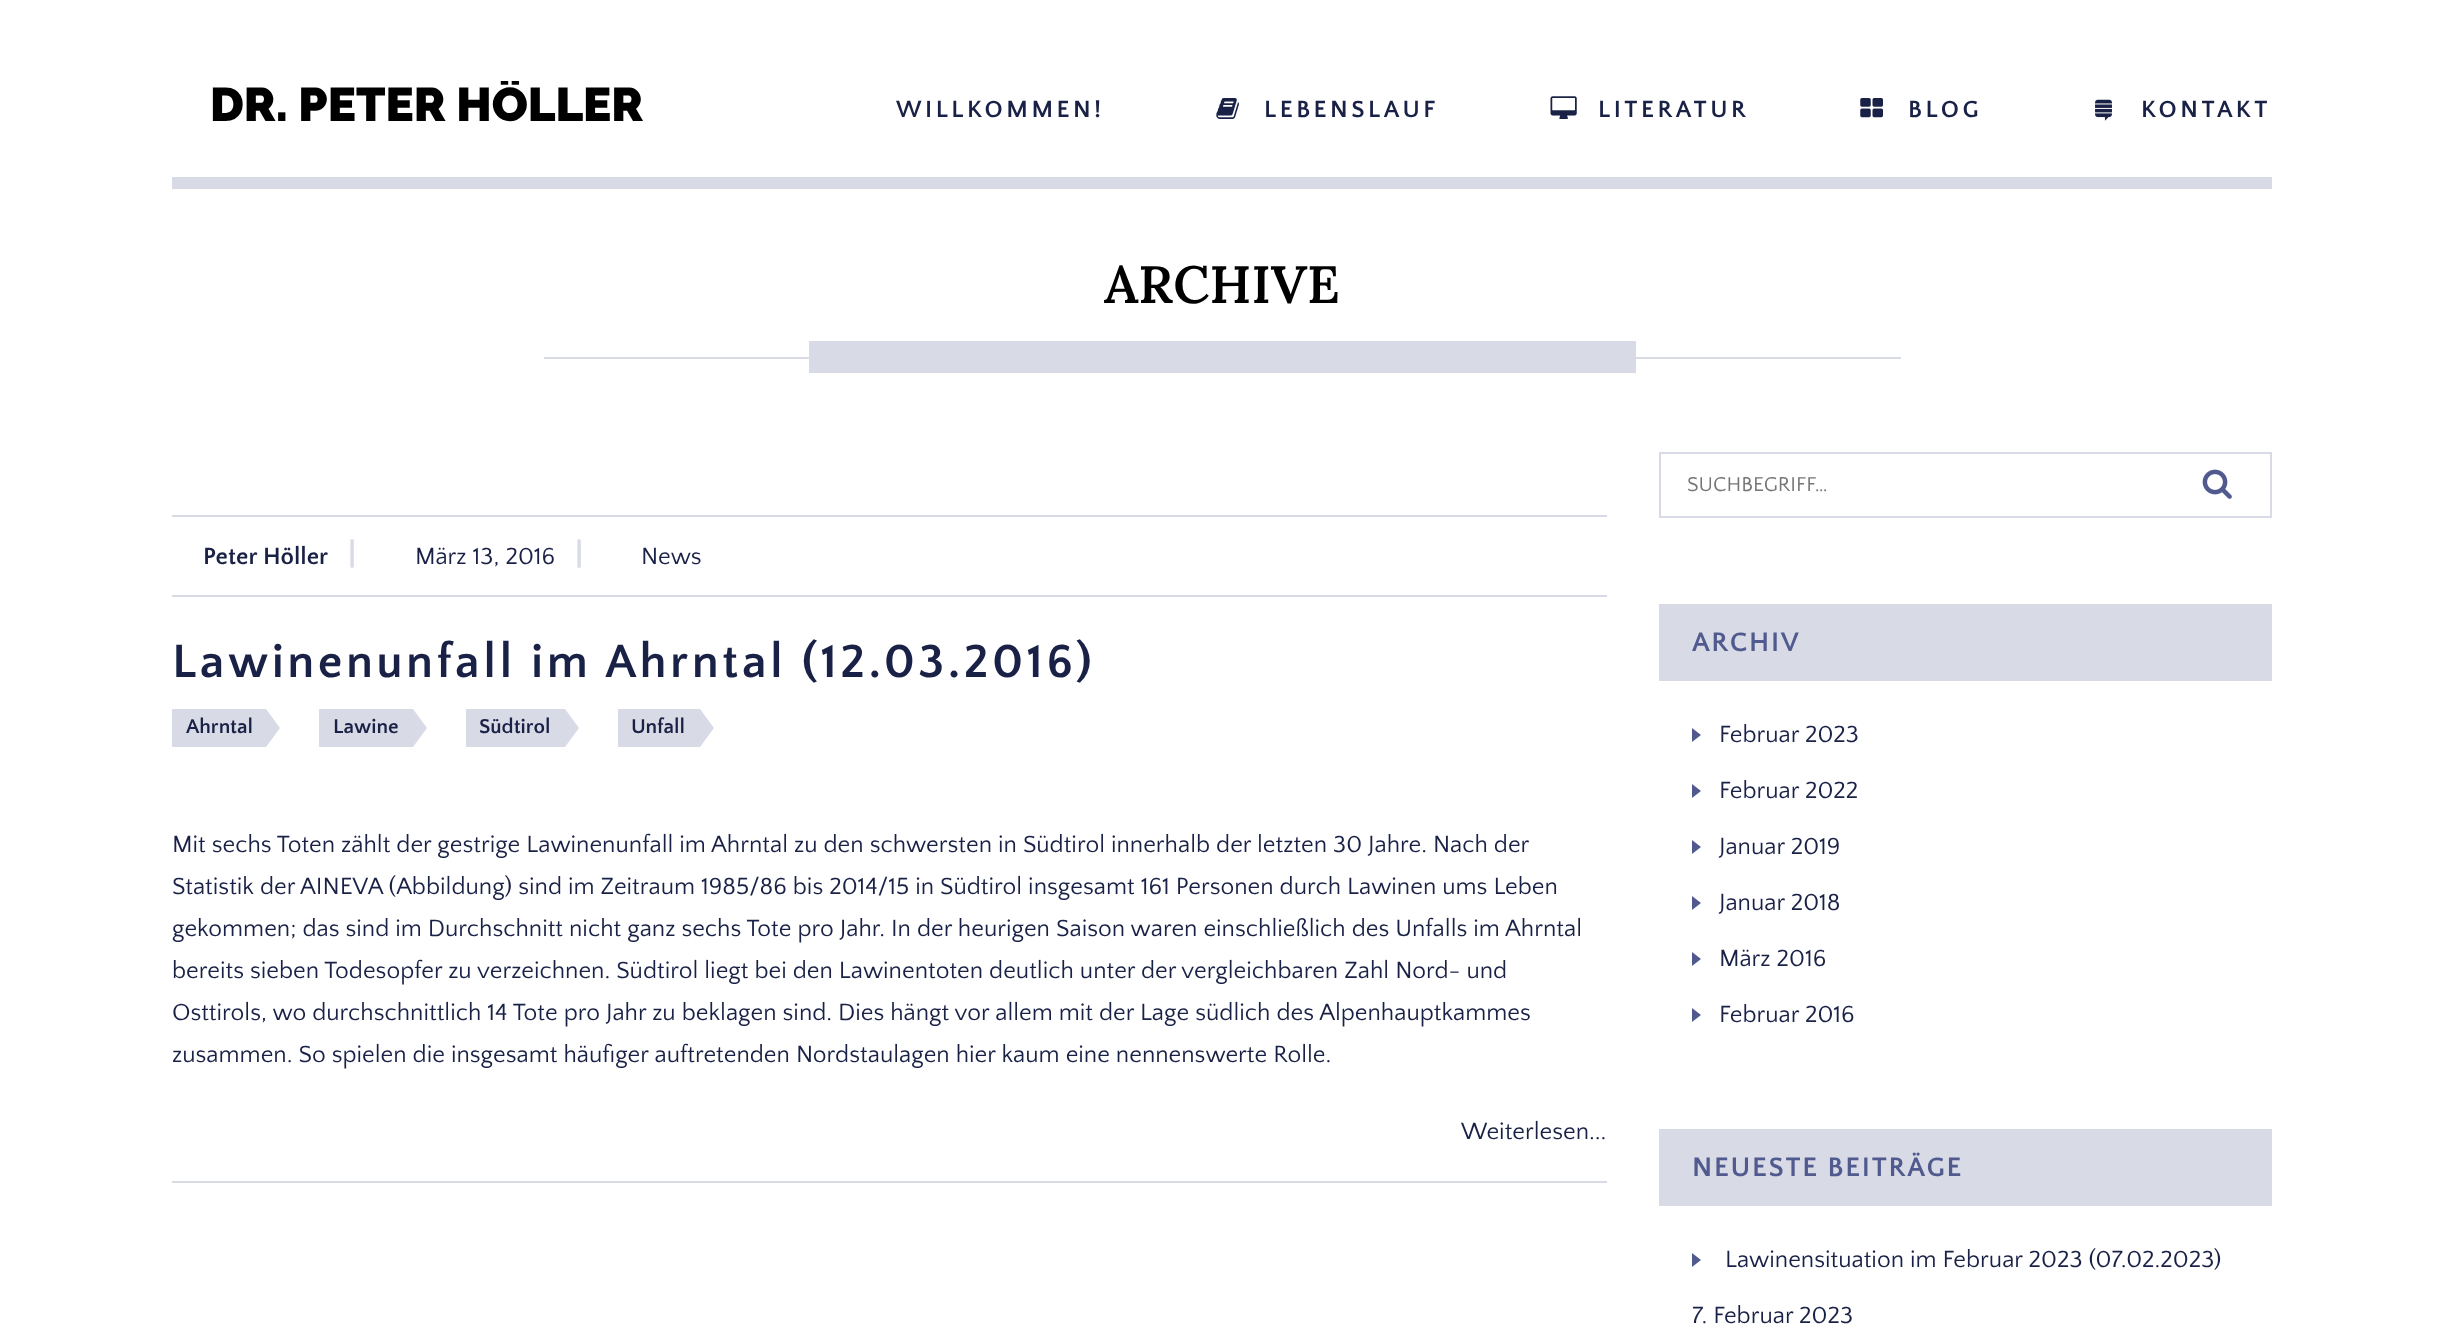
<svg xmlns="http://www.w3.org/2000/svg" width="2443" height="1324">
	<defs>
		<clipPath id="clip1"><rect x="193" y="81" width="469" height="64" /></clipPath>
	</defs>
	<rect width="100%" height="100%" fill="#FFFFFF" />
	<rect x="172" y="177" width="2100" height="12" fill="#D8DAE6" />
	<g clip-path="url(#clip1)">
		<text x="210" y="121" font-family="Raleway" font-size="47.25" font-weight="900" fill="#000000">DR. PETER HÖLLER</text>
	</g>
	<text x="896" y="117" font-family="Quattrocento Sans" font-size="24.5" font-weight="700" letter-spacing="3.5" fill="#1A2146">WILLKOMMEN!</text>
	<image x="1216" y="98" width="23" height="21" href="assets/img1.png" />
	<text x="1264" y="117" font-family="Quattrocento Sans" font-size="24.5" font-weight="700" letter-spacing="3.5" fill="#1A2146">LEBENSLAUF</text>
	<image x="1550" y="96" width="27" height="23" href="assets/img2.png" />
	<text x="1598" y="117" font-family="Quattrocento Sans" font-size="24.5" font-weight="700" letter-spacing="3.5" fill="#1A2146">LITERATUR</text>
	<image x="1860" y="98" width="23" height="20" href="assets/img3.png" />
	<text x="1908" y="117" font-family="Quattrocento Sans" font-size="24.5" font-weight="700" letter-spacing="3.5" fill="#1A2146">BLOG</text>
	<image x="2095" y="99" width="17" height="22" href="assets/img4.png" />
	<text x="2141" y="117" font-family="Quattrocento Sans" font-size="24.5" font-weight="700" letter-spacing="3.5" fill="#1A2146">KONTAKT</text>
	<text x="1104" y="303" font-family="Lora" font-size="52.5" font-weight="600" fill="#000000">ARCHIVE</text>
	<rect x="809" y="341" width="827" height="32" fill="#D8DAE6" />
	<rect x="544" y="357" width="1357" height="2" fill="#D8DAE6" />
	<rect x="172" y="1181" width="1435" height="2" fill="#D8DAE6" />
	<rect x="172" y="515" width="1435" height="2" fill="#D8DAE6" />
	<rect x="172" y="595" width="1435" height="2" fill="#D8DAE6" />
	<text x="203" y="564" font-family="Quattrocento Sans" font-size="24.5" font-weight="700" fill="#1A2146">Peter Höller</text>
	<text x="348" y="564" font-family="Quattrocento Sans" font-size="32" font-weight="700" fill="#D8DAE6">|</text>
	<text x="415" y="564" font-family="Quattrocento Sans" font-size="24.5" fill="#1A2146">März 13, 2016</text>
	<text x="575" y="564" font-family="Quattrocento Sans" font-size="32" font-weight="700" fill="#D8DAE6">|</text>
	<text x="641" y="564" font-family="Quattrocento Sans" font-size="24.5" fill="#1A2146">News</text>
	<text x="172" y="677" font-family="Quattrocento Sans" font-size="49" font-weight="700" letter-spacing="3.5" fill="#1A2146">Lawinenunfall im Ahrntal (12.03.2016)</text>
	<rect x="172" y="709" width="94" height="38" fill="#D8DAE6" />
	<text x="186" y="733" font-family="Quattrocento Sans" font-size="21" font-weight="700" fill="#1A2146">Ahrntal</text>
	<path d="M266 747V709L280 728Z" fill="#D8DAE6" />
	<rect x="319" y="709" width="94" height="38" fill="#D8DAE6" />
	<text x="333" y="733" font-family="Quattrocento Sans" font-size="21" font-weight="700" fill="#1A2146">Lawine</text>
	<path d="M413 747V709L427 728Z" fill="#D8DAE6" />
	<rect x="466" y="709" width="99" height="38" fill="#D8DAE6" />
	<text x="479" y="733" font-family="Quattrocento Sans" font-size="21" font-weight="700" fill="#1A2146">Südtirol</text>
	<path d="M565 747V709L579 728Z" fill="#D8DAE6" />
	<rect x="618" y="709" width="82" height="38" fill="#D8DAE6" />
	<text x="631" y="733" font-family="Quattrocento Sans" font-size="21" font-weight="700" fill="#1A2146">Unfall</text>
	<path d="M700 747V709L714 728Z" fill="#D8DAE6" />
	<g font-family="Quattrocento Sans" font-size="24.5" fill="#1A2146">
		<text x="172" y="852">Mit sechs Toten zählt der gestrige Lawinenunfall im Ahrntal zu den schwersten in Südtirol innerhalb der letzten 30 Jahre. Nach der</text>
		<text x="172" y="894">Statistik der AINEVA (Abbildung) sind im Zeitraum 1985/86 bis 2014/15 in Südtirol insgesamt 161 Personen durch Lawinen ums Leben</text>
		<text x="172" y="936">gekommen; das sind im Durchschnitt nicht ganz sechs Tote pro Jahr. In der heurigen Saison waren einschließlich des Unfalls im Ahrntal</text>
		<text x="172" y="978">bereits sieben Todesopfer zu verzeichnen. Südtirol liegt bei den Lawinentoten deutlich unter der vergleichbaren Zahl Nord- und</text>
		<text x="172" y="1020">Osttirols, wo durchschnittlich 14 Tote pro Jahr zu beklagen sind. Dies hängt vor allem mit der Lage südlich des Alpenhauptkammes</text>
		<text x="172" y="1062">zusammen. So spielen die insgesamt häufiger auftretenden Nordstaulagen hier kaum eine nennenswerte Rolle.</text>
		<text x="1461" y="1139">Weiterlesen...</text>
	</g>
	<rect x="1660" y="453" width="611" height="64" fill="none" stroke="#D8DAE6" stroke-width="2" />
	<text x="1687" y="491" font-family="Quattrocento Sans" font-size="21" fill="#757575">SUCHBEGRIFF…</text>
	<image x="2202" y="469" width="30" height="30" href="assets/img5.png" />
	<rect x="1659" y="604" width="613" height="77" fill="#D8DAE6" />
	<text x="1692" y="651" font-family="Quattrocento Sans" font-size="28" font-weight="700" letter-spacing="1.75" fill="#515A8E">ARCHIV</text>
	<path d="M1692 742V728L1701 735Z" fill="#515A8E" />
	<text x="1719" y="742" font-family="Quattrocento Sans" font-size="24.5" fill="#1A2146">Februar 2023</text>
	<path d="M1692 798V784L1701 791Z" fill="#515A8E" />
	<text x="1719" y="798" font-family="Quattrocento Sans" font-size="24.5" fill="#1A2146">Februar 2022</text>
	<path d="M1692 854V840L1701 847Z" fill="#515A8E" />
	<text x="1719" y="854" font-family="Quattrocento Sans" font-size="24.5" fill="#1A2146">Januar 2019</text>
	<path d="M1692 910V896L1701 903Z" fill="#515A8E" />
	<text x="1719" y="910" font-family="Quattrocento Sans" font-size="24.5" fill="#1A2146">Januar 2018</text>
	<path d="M1692 966V952L1701 959Z" fill="#515A8E" />
	<text x="1719" y="966" font-family="Quattrocento Sans" font-size="24.5" fill="#1A2146">März 2016</text>
	<path d="M1692 1022V1008L1701 1015Z" fill="#515A8E" />
	<text x="1719" y="1022" font-family="Quattrocento Sans" font-size="24.5" fill="#1A2146">Februar 2016</text>
	<rect x="1659" y="1129" width="613" height="77" fill="#D8DAE6" />
	<text x="1692" y="1176" font-family="Quattrocento Sans" font-size="28" font-weight="700" letter-spacing="1.75" fill="#515A8E">NEUESTE BEITRÄGE</text>
	<path d="M1692 1267V1253L1701 1260Z" fill="#515A8E" />
	<g font-family="Quattrocento Sans" font-size="24.5" fill="#1A2146">
		<text x="1725" y="1267">Lawinensituation im Februar 2023 (07.02.2023)</text>
		<text x="1692" y="1323">7. Februar 2023</text>
	</g>
</svg>
